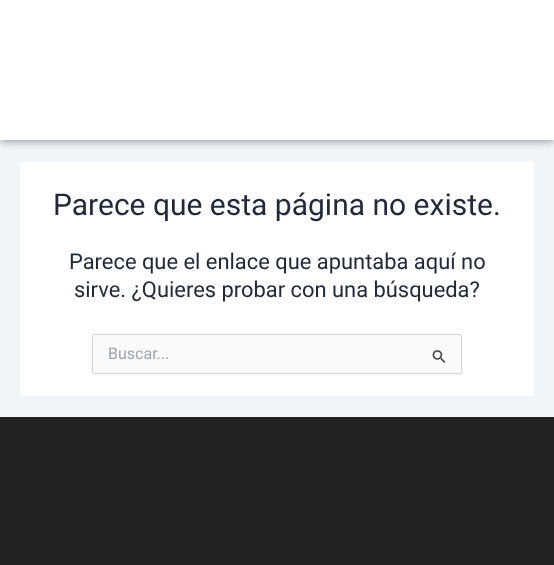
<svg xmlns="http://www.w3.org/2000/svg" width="554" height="565">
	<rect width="100%" height="100%" fill="#F0F5FA" />
	<rect x="0" y="0" width="554" height="140" fill="#000000" fill-opacity="0.5" filter="blur(5px)" />
	<rect x="0" y="0" width="554" height="140" fill="#FFFFFF" />
	<rect x="20" y="162" width="514" height="234" fill="#FFFFFF" />
	<text x="53" y="215" font-family="Roboto" font-size="30" fill="#1E293B">Parece que esta página no existe.</text>
	<g font-family="Roboto" font-size="21.9" fill="#1E293B">
		<text x="69" y="269">Parece que el enlace que apuntaba aquí no</text>
		<text x="74" y="297">sirve. ¿Quieres probar con una búsqueda?</text>
	</g>
	<rect x="92" y="335" width="370" height="40" rx="2" fill="#000000" fill-opacity="0.05" filter="blur(1px)" />
	<rect x="92.5" y="334.5" width="369" height="39" rx="1.5" fill="#FAFAFA" stroke="#D1D5DB" />
	<text x="108" y="359" font-family="Roboto" font-size="16" fill="#9CA3AF">Buscar...</text>
	<image x="432" y="350" width="13" height="13" href="assets/img1.png" />
	<rect x="0" y="417" width="554" height="148" fill="#232222" />
</svg>
